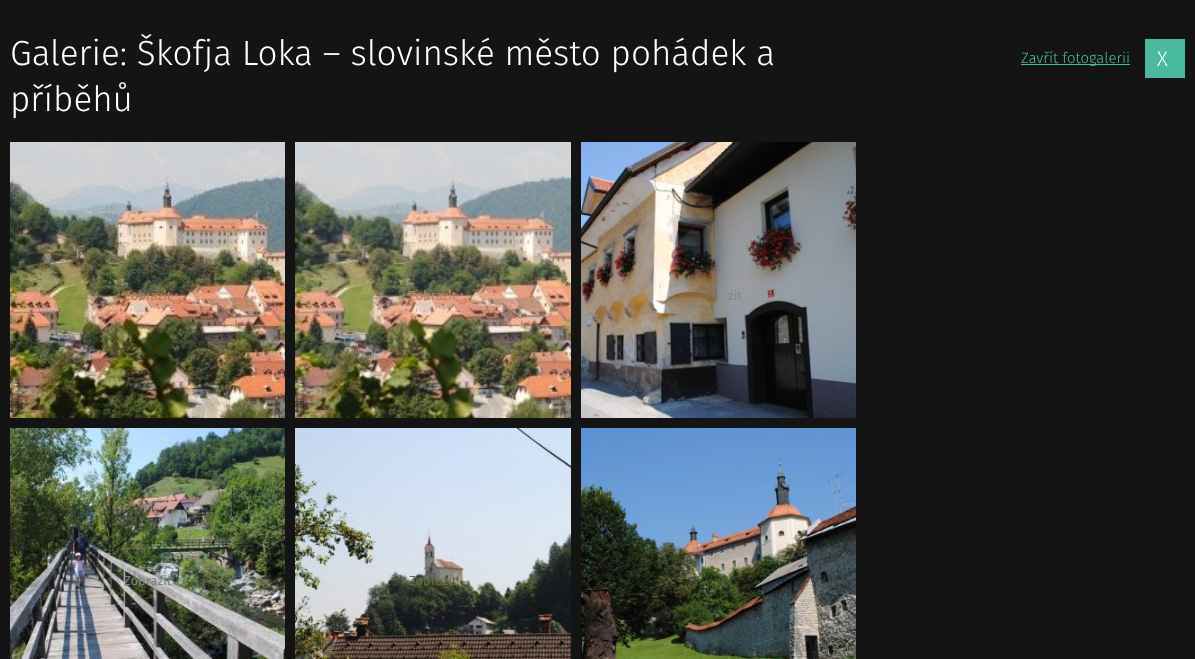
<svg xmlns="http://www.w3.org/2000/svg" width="1195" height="659">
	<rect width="100%" height="100%" fill="#141414" />
	<g font-family="Fira Sans" font-size="35" font-weight="300" fill="#FFFFFF">
		<text x="10" y="65">Galerie: Škofja Loka – slovinské město pohádek a</text>
		<text x="10" y="111">příběhů</text>
	</g>
	<rect x="1021" y="64" width="109" height="1" fill="#49BA9D" />
	<text x="1021" y="63" font-family="Fira Sans" font-size="15" font-weight="300" fill="#49BA9D">Zavřít fotogalerii</text>
	<rect x="1145" y="39" width="40" height="39" fill="#49BA9D" />
	<text x="1157" y="66" font-family="Fira Sans" font-size="21" font-weight="300" letter-spacing="5" fill="#FFFFFF">X</text>
	<image x="10" y="142" width="275" height="276" href="assets/img1.png" />
	<text x="124" y="300" font-family="Fira Sans" font-size="13" fill="#A97D5E">Zobrazit</text>
	<image x="295" y="142" width="276" height="276" href="assets/img2.png" />
	<text x="409" y="300" font-family="Fira Sans" font-size="13" fill="#AF876A">Zobrazit</text>
	<image x="581" y="142" width="275" height="276" href="assets/img3.png" />
	<text x="728" y="300" font-family="Fira Sans" font-size="13" fill="#8F8476">zit</text>
	<image x="10" y="428" width="275" height="231" href="assets/img4.png" />
	<text x="124" y="585" font-family="Fira Sans" font-size="13" fill="#7E837E">Zobrazit</text>
	<image x="295" y="428" width="276" height="231" href="assets/img5.png" />
	<text x="409" y="585" font-family="Fira Sans" font-size="13" fill="#626751">Zobrazit</text>
	<image x="581" y="428" width="275" height="231" href="assets/img6.png" />
</svg>
